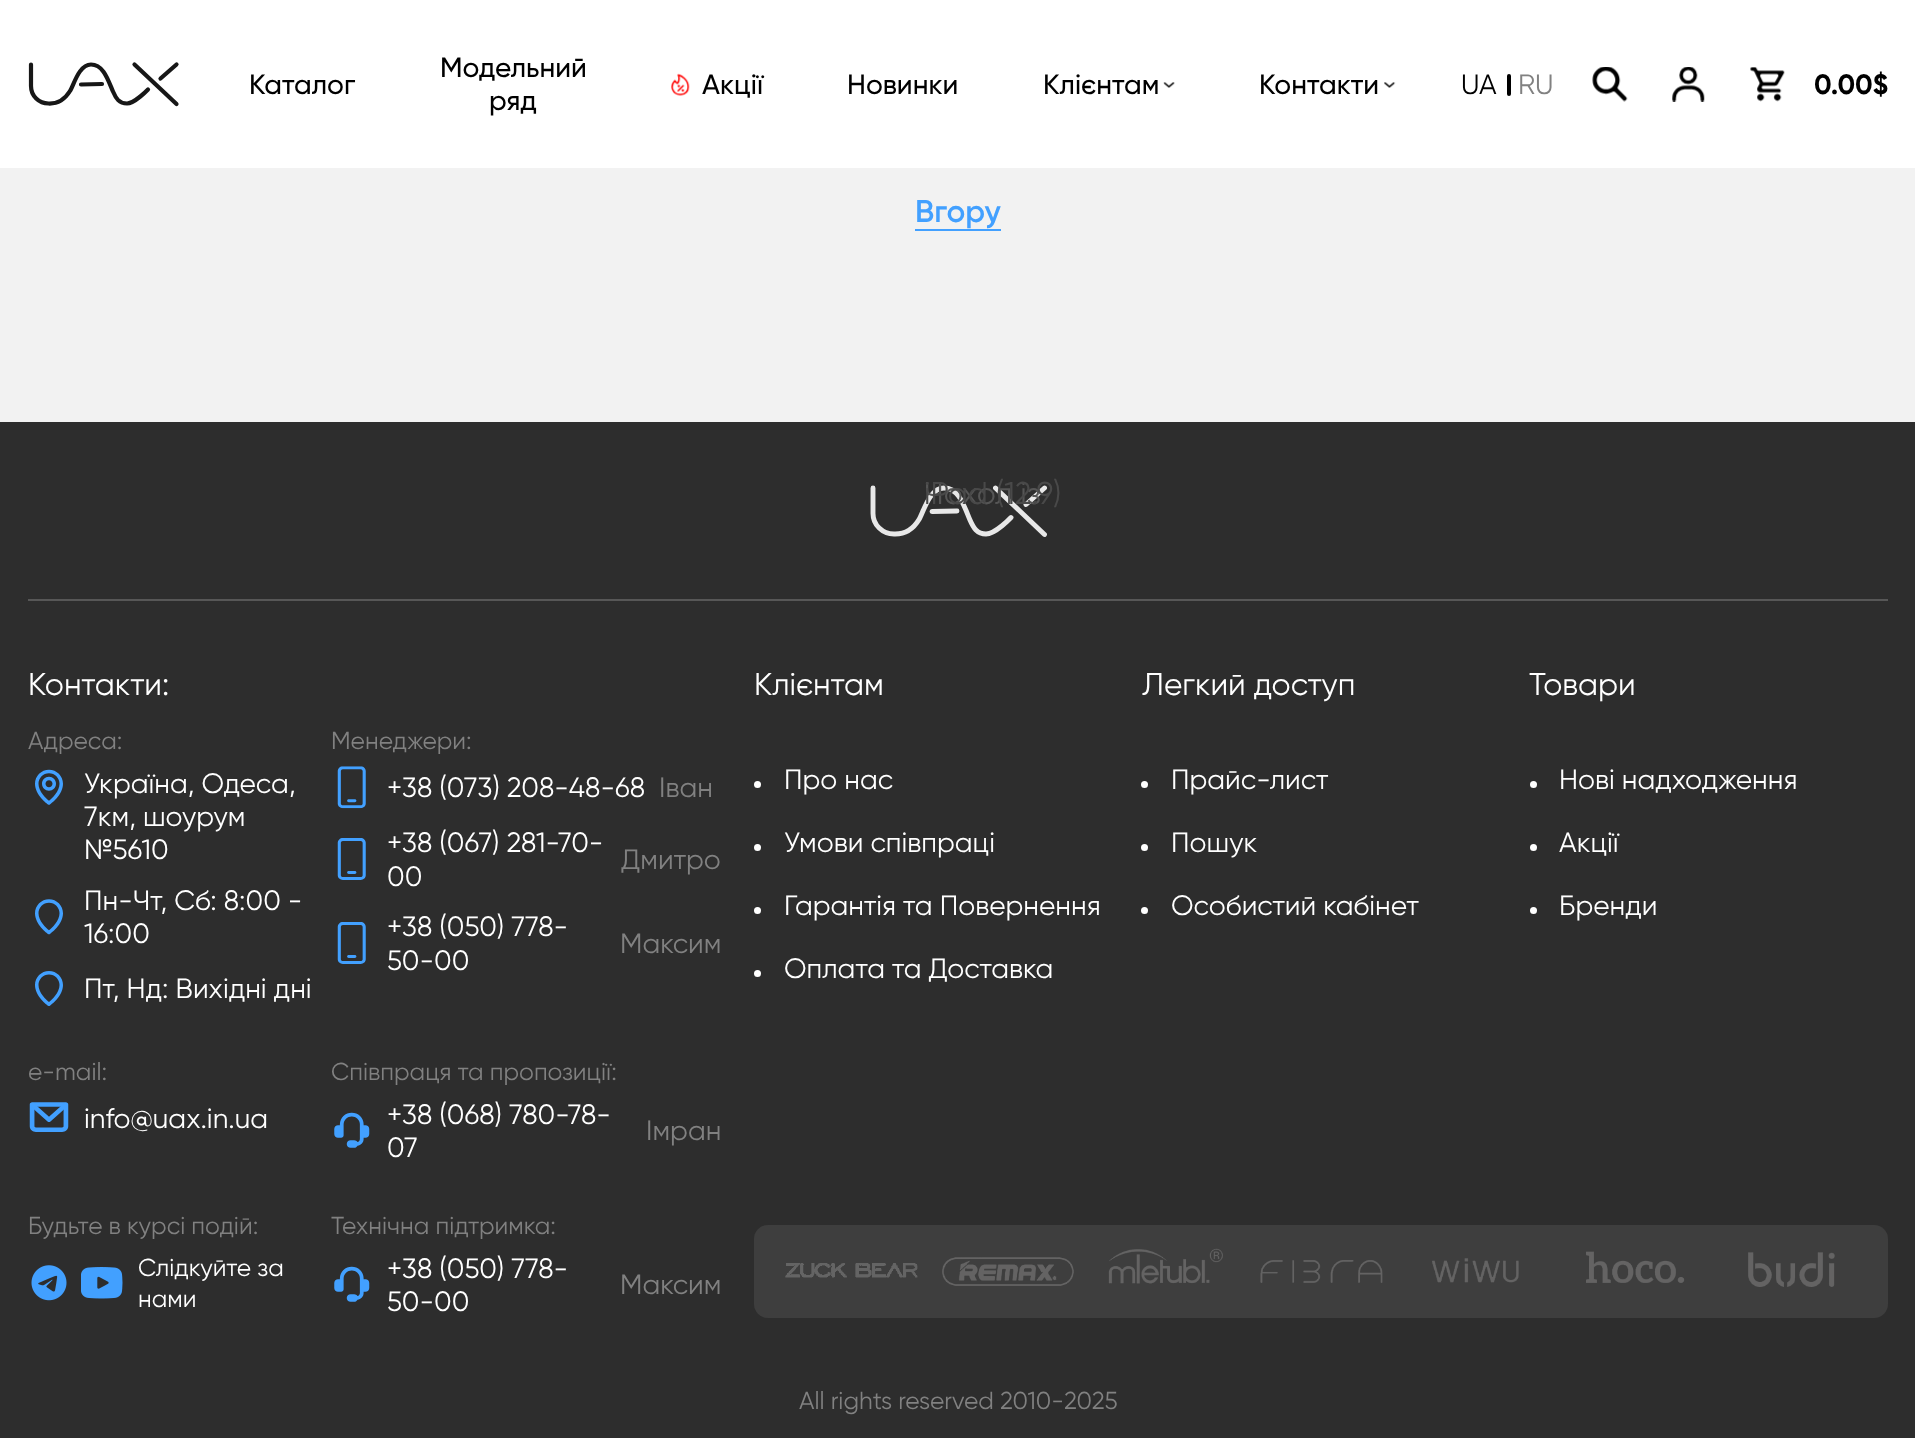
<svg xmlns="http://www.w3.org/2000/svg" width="1915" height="1438">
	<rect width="100%" height="100%" fill="#F2F2F2" />
	<rect x="0" y="0" width="1915" height="168" fill="#FFFFFF" />
	<path d="M81 84.5L102 84M160.5 78.5L176.5 64.5M134.5 64.5L176.5 104M31 64.5V86C31 96 39 103.5 48.5 103.5C60 104 66 97.5 70 91C74 84.5 79 64.5 91 64.5C103.5 64.5 108 80 113 91.5C116 98.5 119 103.5 127 103.5C134.5 103.5 148 89.5 148 89.5" fill="none" stroke="#171717" stroke-width="4.2" stroke-linecap="round" stroke-linejoin="round" />
	<g font-family="Gilroy" font-size="28" font-weight="500" fill="#000000">
		<text x="249" y="94">Каталог</text>
		<text x="440" y="77">Модельний</text>
		<text x="489" y="110">ряд</text>
	</g>
	<image x="671" y="73" width="19" height="23" href="assets/img1.png" />
	<g font-family="Gilroy" font-size="28" font-weight="500" fill="#000000">
		<text x="702" y="94">Акції</text>
		<text x="847" y="94">Новинки</text>
		<text x="1043" y="94">Клієнтам</text>
	</g>
	<image x="1163" y="82" width="12" height="6" href="assets/img2.png" />
	<text x="1259" y="94" font-family="Gilroy" font-size="28" font-weight="500" fill="#000000">Контакти</text>
	<image x="1384" y="82" width="12" height="6" href="assets/img3.png" />
	<text x="1461" y="94" font-family="Gilroy" font-size="28" fill="#000000">UA</text>
	<rect x="1507" y="74" width="4" height="22" rx="2" fill="#000000" />
	<text x="1518" y="94" font-family="Gilroy" font-size="28" fill="#818181">RU</text>
	<image x="1592" y="67" width="36" height="35" href="assets/img4.png" />
	<image x="1672" y="67" width="33" height="35" href="assets/img5.png" />
	<image x="1750" y="67" width="35" height="35" href="assets/img6.png" />
	<text x="1814" y="94" font-family="Gilroy" font-size="28" font-weight="700" fill="#000000">0.00$</text>
	<rect x="0" y="422" width="1915" height="1016" fill="#2D2D2D" />
	<path d="M932 511.5L957 511M1026 504.5L1044.5 488M995.5 488L1044.5 534.5M873 488V513.5C873 525 882.5 534 894 534C907 534.5 914.5 527 919 519.5C923.5 512 929.5 488 944 488C959 488 964 506 970 520C973.5 528 977 534 986 534C995.5 534 1011 517.5 1011 517.5" fill="none" stroke="#E8E8E8" stroke-width="4.9" stroke-linecap="round" stroke-linejoin="round" />
	<text x="924" y="504" font-family="Gilroy" font-size="31.5" fill="#565656">Чохол із</text>
	<text x="924" y="504" font-family="Gilroy" font-size="31.5" fill="#494949">iPad (12.9)</text>
	<rect x="915" y="229" width="86" height="2" fill="#42A0FF" />
	<text x="915" y="222" font-family="Gilroy" font-size="31.5" font-weight="600" fill="#42A0FF">Вгору</text>
	<rect x="28" y="599" width="1860" height="2" fill="#575757" />
	<text x="28" y="695" font-family="Gilroy" font-size="31.5" fill="#FFFFFF">Контакти:</text>
	<text x="28" y="749" font-family="Gilroy" font-size="24.5" fill="#818181">Адреса:</text>
	<image x="35" y="769" width="28" height="36" href="assets/img7.png" />
	<g font-family="Gilroy" font-size="28" fill="#FFFFFF">
		<text x="84" y="793">Україна, Одеса,</text>
		<text x="84" y="826">7км, шоурум</text>
		<text x="84" y="859">№5610</text>
	</g>
	<image x="35" y="899" width="28" height="36" href="assets/img8.png" />
	<g font-family="Gilroy" font-size="28" fill="#FFFFFF">
		<text x="84" y="910">Пн-Чт, Сб: 8:00 -</text>
		<text x="84" y="943">16:00</text>
	</g>
	<image x="35" y="971" width="28" height="35" href="assets/img9.png" />
	<text x="84" y="998" font-family="Gilroy" font-size="28" fill="#FFFFFF">Пт, Нд: Вихідні дні</text>
	<text x="331" y="749" font-family="Gilroy" font-size="24.5" fill="#818181">Менеджери:</text>
	<image x="337" y="766" width="29" height="43" href="assets/img10.png" />
	<text x="387" y="797" font-family="Gilroy" font-size="28" fill="#FFFFFF">+38 (073) 208-48-68</text>
	<text x="659" y="797" font-family="Gilroy" font-size="28" fill="#818181">Іван</text>
	<image x="337" y="838" width="29" height="42" href="assets/img11.png" />
	<g font-family="Gilroy" font-size="28" fill="#FFFFFF">
		<text x="387" y="852">+38 (067) 281-70-</text>
		<text x="387" y="886">00</text>
	</g>
	<text x="621" y="869" font-family="Gilroy" font-size="28" fill="#818181">Дмитро</text>
	<image x="337" y="922" width="29" height="42" href="assets/img12.png" />
	<g font-family="Gilroy" font-size="28" fill="#FFFFFF">
		<text x="387" y="936">+38 (050) 778-</text>
		<text x="387" y="970">50-00</text>
	</g>
	<text x="620" y="953" font-family="Gilroy" font-size="28" fill="#818181">Максим</text>
	<text x="28" y="1080" font-family="Gilroy" font-size="24.5" fill="#818181">e-mail:</text>
	<image x="29" y="1102" width="40" height="30" href="assets/img13.png" />
	<text x="84" y="1128" font-family="Gilroy" font-size="28" fill="#FFFFFF">info@uax.in.ua</text>
	<text x="331" y="1080" font-family="Gilroy" font-size="24.5" fill="#818181">Співпраця та пропозиції:</text>
	<image x="334" y="1112" width="36" height="36" href="assets/img14.png" />
	<g font-family="Gilroy" font-size="28" fill="#FFFFFF">
		<text x="387" y="1124">+38 (068) 780-78-</text>
		<text x="387" y="1157">07</text>
	</g>
	<text x="646" y="1140" font-family="Gilroy" font-size="28" fill="#818181">Імран</text>
	<text x="28" y="1234" font-family="Gilroy" font-size="24.5" fill="#818181">Будьте в курсі подій:</text>
	<image x="31" y="1265" width="36" height="36" href="assets/img15.png" />
	<image x="81" y="1267" width="42" height="32" href="assets/img16.png" />
	<g font-family="Gilroy" font-size="24.5" fill="#FFFFFF">
		<text x="138" y="1276">Слідкуйте за</text>
		<text x="138" y="1307">нами</text>
	</g>
	<text x="331" y="1234" font-family="Gilroy" font-size="24.5" fill="#818181">Технічна підтримка:</text>
	<image x="334" y="1266" width="36" height="36" href="assets/img14.png" />
	<g font-family="Gilroy" font-size="28" fill="#FFFFFF">
		<text x="387" y="1278">+38 (050) 778-</text>
		<text x="387" y="1311">50-00</text>
	</g>
	<text x="620" y="1294" font-family="Gilroy" font-size="28" fill="#818181">Максим</text>
	<text x="754" y="695" font-family="Gilroy" font-size="31.5" fill="#FFFFFF">Клієнтам</text>
	<circle cx="757.5" cy="784.5" r="3.5" fill="#FFFFFF" />
	<text x="784" y="789" font-family="Gilroy" font-size="28" fill="#FFFFFF">Про нас</text>
	<circle cx="757.5" cy="847.5" r="3.5" fill="#FFFFFF" />
	<text x="784" y="852" font-family="Gilroy" font-size="28" fill="#FFFFFF">Умови співпраці</text>
	<circle cx="757.5" cy="910.5" r="3.5" fill="#FFFFFF" />
	<text x="784" y="915" font-family="Gilroy" font-size="28" fill="#FFFFFF">Гарантія та Повернення</text>
	<circle cx="757.5" cy="973.5" r="3.5" fill="#FFFFFF" />
	<text x="784" y="978" font-family="Gilroy" font-size="28" fill="#FFFFFF">Оплата та Доставка</text>
	<text x="1142" y="695" font-family="Gilroy" font-size="31.5" fill="#FFFFFF">Легкий доступ</text>
	<circle cx="1144.5" cy="784.5" r="3.5" fill="#FFFFFF" />
	<text x="1171" y="789" font-family="Gilroy" font-size="28" fill="#FFFFFF">Прайс-лист</text>
	<circle cx="1144.5" cy="847.5" r="3.5" fill="#FFFFFF" />
	<text x="1171" y="852" font-family="Gilroy" font-size="28" fill="#FFFFFF">Пошук</text>
	<circle cx="1144.5" cy="910.5" r="3.5" fill="#FFFFFF" />
	<text x="1171" y="915" font-family="Gilroy" font-size="28" fill="#FFFFFF">Особистий кабінет</text>
	<text x="1529" y="695" font-family="Gilroy" font-size="31.5" fill="#FFFFFF">Товари</text>
	<circle cx="1533.5" cy="784.5" r="3.5" fill="#FFFFFF" />
	<text x="1559" y="789" font-family="Gilroy" font-size="28" fill="#FFFFFF">Нові надходження</text>
	<circle cx="1533.5" cy="847.5" r="3.5" fill="#FFFFFF" />
	<text x="1559" y="852" font-family="Gilroy" font-size="28" fill="#FFFFFF">Акції</text>
	<circle cx="1533.5" cy="910.5" r="3.5" fill="#FFFFFF" />
	<text x="1559" y="915" font-family="Gilroy" font-size="28" fill="#FFFFFF">Бренди</text>
	<rect x="754" y="1225" width="1134" height="93" rx="14" fill="#3E3E3E" />
	<image x="785" y="1263" width="133" height="15" href="assets/img17.png" />
	<image x="942" y="1257" width="132" height="29" href="assets/img18.png" />
	<image x="1108" y="1248" width="115" height="36" href="assets/img19.png" />
	<image x="1260" y="1260" width="123" height="23" href="assets/img20.png" />
	<image x="1432" y="1258" width="87" height="25" href="assets/img21.png" />
	<image x="1586" y="1251" width="99" height="32" href="assets/img22.png" />
	<image x="1748" y="1252" width="87" height="35" href="assets/img23.png" />
	<text x="799" y="1409" font-family="Gilroy" font-size="24.5" fill="#818181">All rights reserved 2010-2025</text>
</svg>
